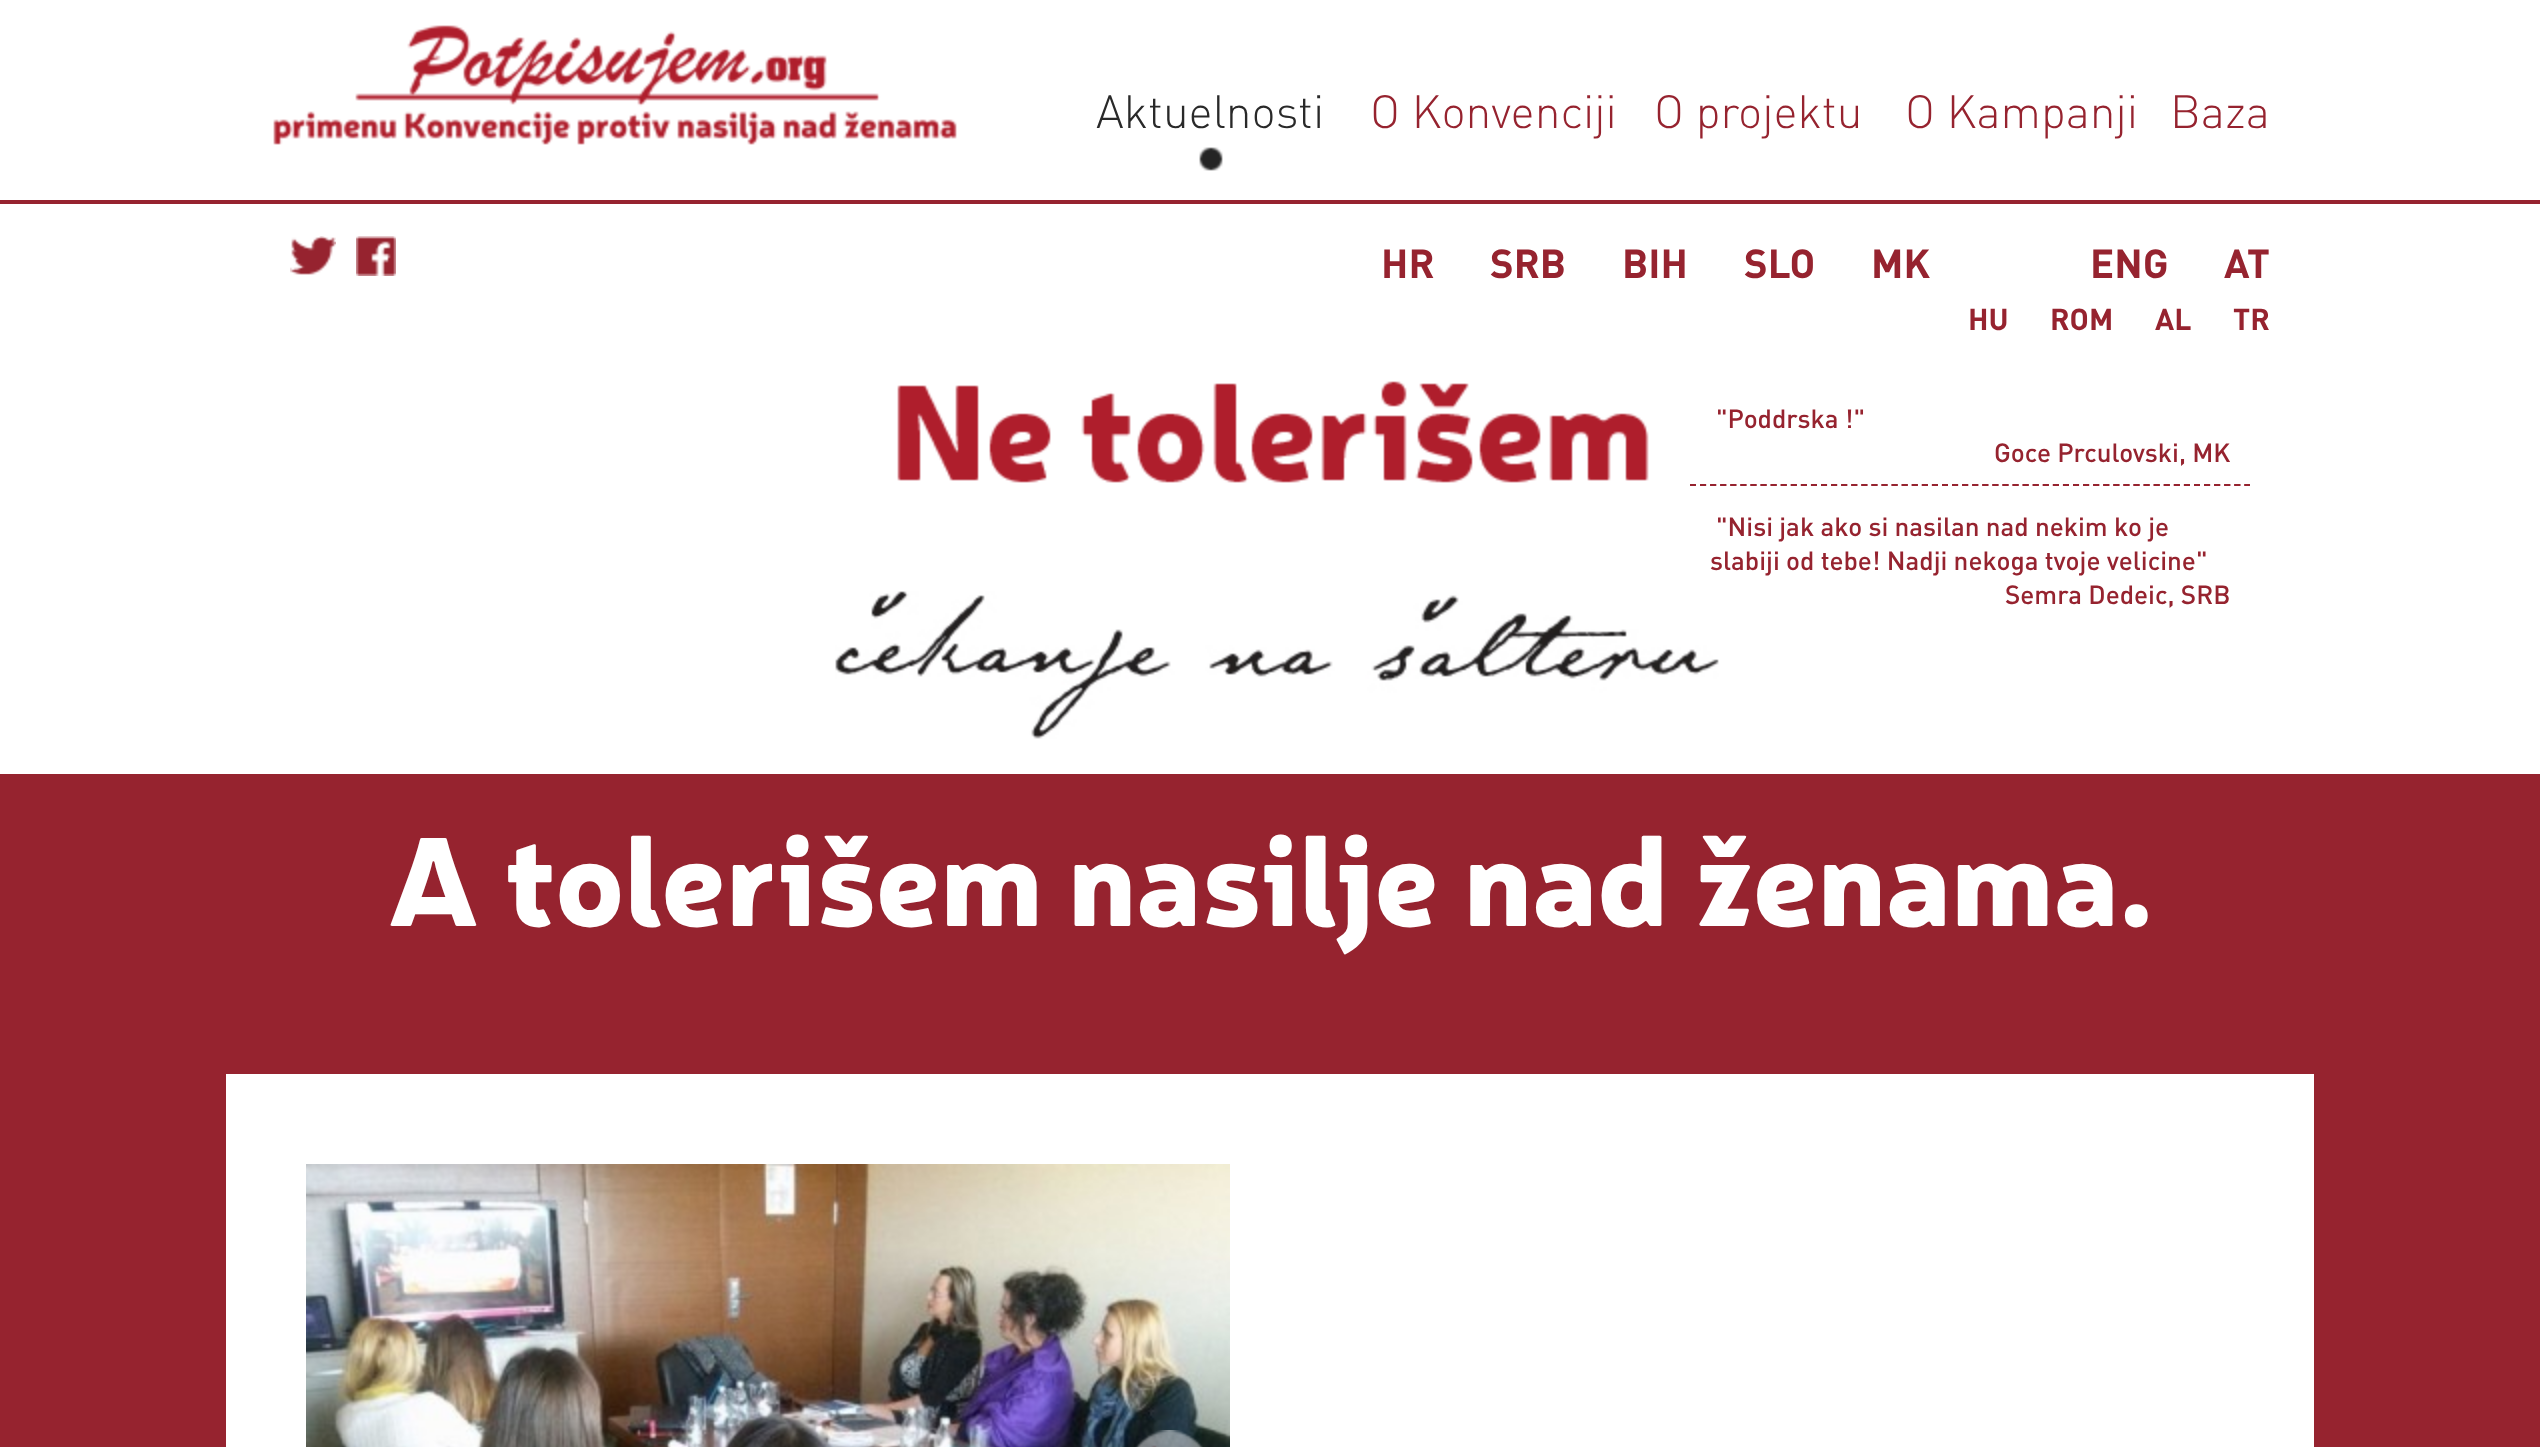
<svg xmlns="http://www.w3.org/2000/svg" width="2540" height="1447">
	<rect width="100%" height="100%" fill="#96232F" />
	<rect x="0" y="0" width="2540" height="200" fill="#FFFFFF" />
	<image x="273" y="25" width="684" height="120" href="assets/img1.png" />
	<image x="1199" y="147" width="24" height="24" href="assets/img2.png" />
	<text x="1096" y="128" font-family="DIN" font-size="46" font-weight="300" fill="#292929">Aktuelnosti</text>
	<g font-family="DIN" font-size="46" font-weight="300" fill="#96232F">
		<text x="1370" y="128">O Konvenciji</text>
		<text x="1654" y="128">O projektu</text>
		<text x="1905" y="128">O Kampanji</text>
		<text x="2170" y="128">Baza</text>
	</g>
	<rect x="0" y="204" width="2540" height="570" fill="#FFFFFF" />
	<image x="897" y="381" width="752" height="102" href="assets/img3.png" />
	<image x="290" y="236" width="46" height="39" href="assets/img4.png" />
	<image x="356" y="236" width="40" height="40" href="assets/img5.png" />
	<g font-family="DIN" font-size="40" font-weight="700" fill="#96232F">
		<text x="1381" y="278">HR</text>
		<text x="1490" y="278">SRB</text>
		<text x="1622" y="278">BIH</text>
		<text x="1744" y="278">SLO</text>
		<text x="1871" y="278">MK</text>
		<text x="2090" y="278">ENG</text>
		<text x="2224" y="278">AT</text>
	</g>
	<g font-family="DIN" font-size="30" font-weight="700" fill="#96232F">
		<text x="1968" y="330">HU</text>
		<text x="2050" y="330">ROM</text>
		<text x="2155" y="330">AL</text>
		<text x="2233" y="330">TR</text>
	</g>
	<g font-family="DIN" font-size="26" font-weight="500" fill="#96232F">
		<text x="1716" y="428">"Poddrska !"</text>
		<text x="1994" y="462">Goce Prculovski, MK</text>
	</g>
	<path d="M1690 485H2250" fill="none" stroke="#96232F" stroke-width="2" stroke-dasharray="6 4.08" />
	<g font-family="DIN" font-size="26" font-weight="500" fill="#96232F">
		<text x="1716" y="536">"Nisi jak ako si nasilan nad nekim ko je</text>
		<text x="1710" y="570">slabiji od tebe! Nadji nekoga tvoje velicine"</text>
		<text x="2005" y="604">Semra Dedeic, SRB</text>
	</g>
	<path d="M1690 485H2250" fill="none" stroke="#96232F" stroke-width="2" stroke-dasharray="6 4.08" />
	<image x="835" y="591" width="884" height="148" href="assets/img6.png" />
	<text x="387" y="926" font-family="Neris" font-size="124" font-weight="900" fill="#FFFFFF">A tolerišem nasilje nad ženama.</text>
	<rect x="226" y="1074" width="2088" height="373" fill="#FFFFFF" />
	<image x="306" y="1164" width="924" height="283" href="assets/img7.png" />
	<image x="1135" y="1430" width="68" height="17" href="assets/img8.png" />
</svg>
